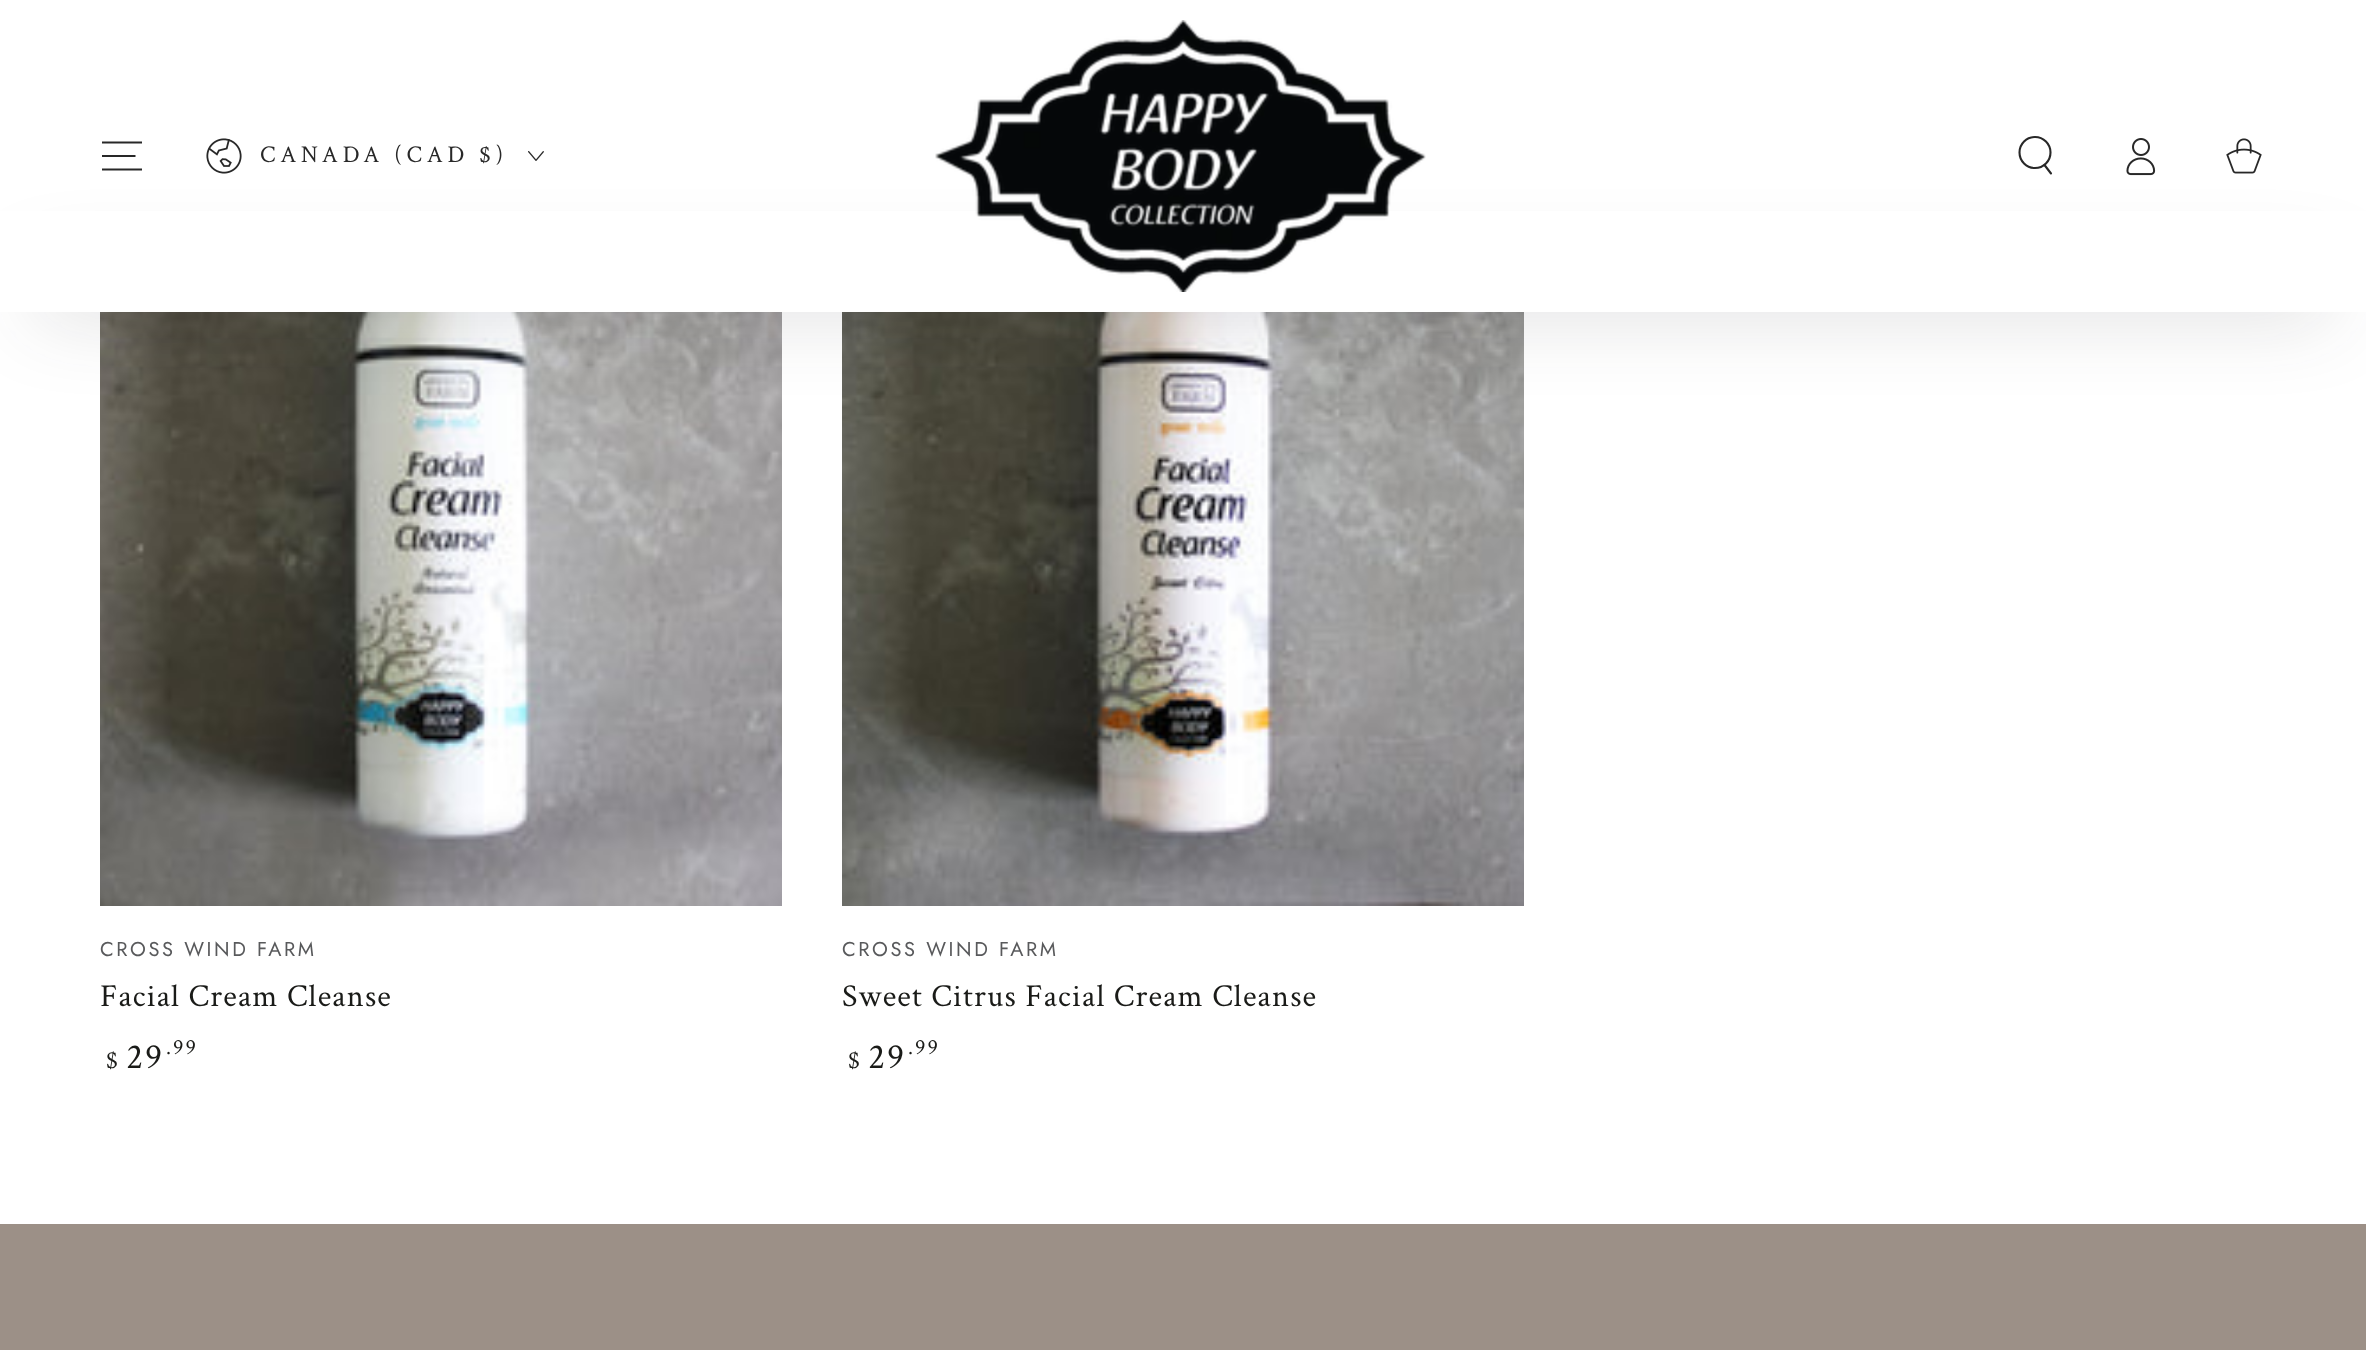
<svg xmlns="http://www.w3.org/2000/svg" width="2366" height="1350">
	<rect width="100%" height="100%" fill="#FFFFFF" />
	<image x="100" y="312" width="682" height="594" href="assets/img6.png" />
	<image x="842" y="312" width="682" height="594" href="assets/img7.png" />
	<rect x="30" y="272" width="2306" height="40" rx="20" fill="#212326" fill-opacity="0.2" filter="blur(40px)" />
	<path d="M102 169.5H142M102 156H135.5M102 142.5H142" fill="none" stroke="#282828" stroke-width="1.8" />
	<image x="206" y="138" width="36" height="36" href="assets/img1.png" />
	<text x="260" y="162" font-family="Crimson Text" font-size="24" letter-spacing="4.75" fill="#282828">CANADA (CAD $)</text>
	<image x="528" y="151" width="16" height="10" href="assets/img2.png" />
	<rect x="0" y="211" width="2366" height="101" fill="#FFFFFF" />
	<image x="935" y="20" width="491" height="272" href="assets/img3.png" />
	<circle cx="2035" cy="152.5" r="15.5" fill="none" stroke="#282828" stroke-width="2.1" />
	<path d="M2044.5 165L2051 173.5" fill="none" stroke="#282828" stroke-width="2.1" stroke-linecap="round" />
	<image x="2126" y="138" width="30" height="38" href="assets/img4.png" />
	<image x="2226" y="138" width="36" height="36" href="assets/img5.png" />
	<text x="100" y="956" font-family="Jost" font-size="20" letter-spacing="2.6" fill="#595A5C">CROSS WIND FARM</text>
	<text x="100" y="1006" font-family="Crimson Text" font-size="32" letter-spacing="1.2" fill="#1A1B18">Facial Cream Cleanse</text>
	<text x="106" y="1068" font-family="Crimson Text" font-size="25" letter-spacing="2" fill="#1A1B18">$</text>
	<text x="126" y="1068" font-family="Crimson Text" font-size="36" letter-spacing="2" fill="#1A1B18">29</text>
	<text x="166" y="1054" font-family="Crimson Text" font-size="22" letter-spacing="2" fill="#1A1B18">.99</text>
	<text x="842" y="956" font-family="Jost" font-size="20" letter-spacing="2.6" fill="#595A5C">CROSS WIND FARM</text>
	<text x="842" y="1006" font-family="Crimson Text" font-size="32" letter-spacing="1.2" fill="#1A1B18">Sweet Citrus Facial Cream Cleanse</text>
	<text x="848" y="1068" font-family="Crimson Text" font-size="25" letter-spacing="2" fill="#1A1B18">$</text>
	<text x="868" y="1068" font-family="Crimson Text" font-size="36" letter-spacing="2" fill="#1A1B18">29</text>
	<text x="908" y="1054" font-family="Crimson Text" font-size="22" letter-spacing="2" fill="#1A1B18">.99</text>
	<rect x="0" y="1224" width="2366" height="126" fill="#9C9087" />
</svg>
